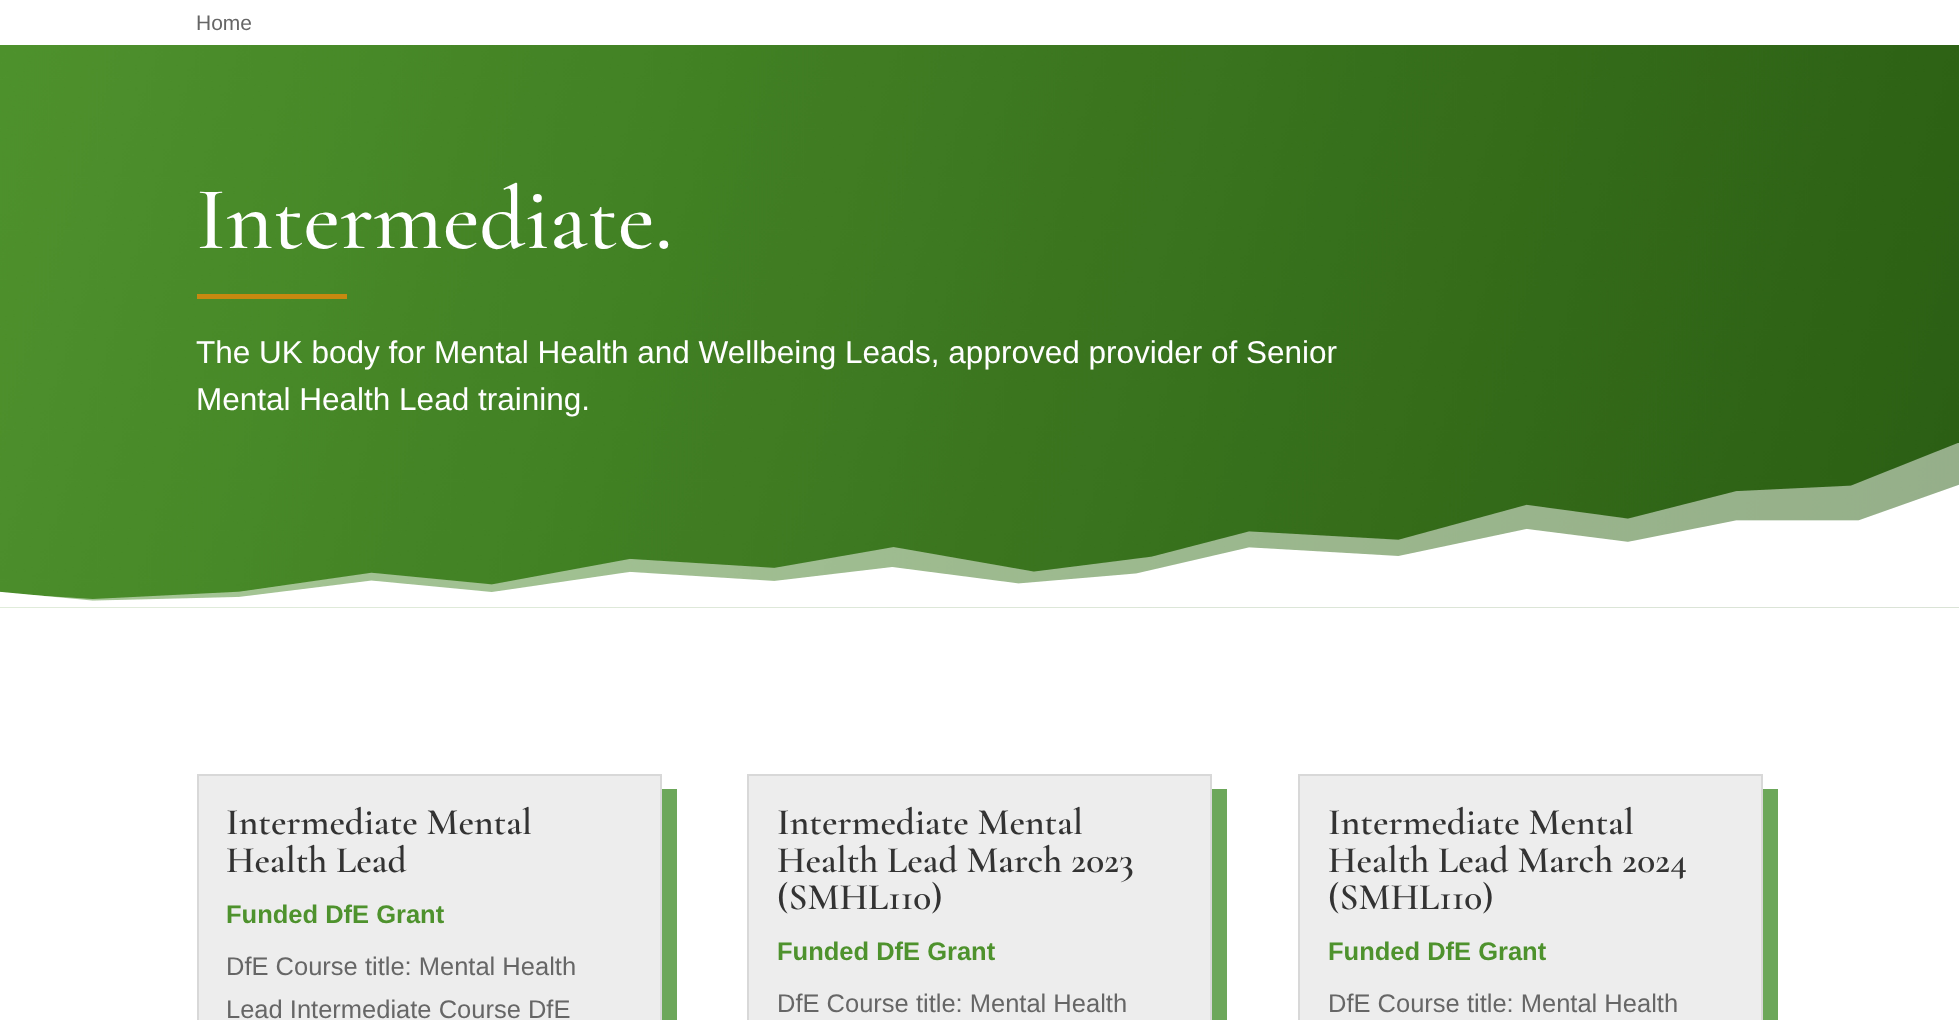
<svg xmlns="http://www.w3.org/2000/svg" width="1959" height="1020">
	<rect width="100%" height="100%" fill="#FFFFFF" />
	<text x="196" y="30" font-family="Liberation Sans" font-size="21" fill="#666666">Home</text>
	<image x="0" y="45" width="1959" height="563" href="assets/img1.png" />
	<text x="196" y="248" font-family="Cormorant Garamond" font-size="90" font-weight="500" fill="#FFFFFF">Intermediate.</text>
	<rect x="197" y="294" width="150" height="5" fill="#C78910" />
	<g font-family="Liberation Sans" font-size="31.5" fill="#FFFFFF">
		<text x="196" y="363">The UK body for Mental Health and Wellbeing Leads, approved provider of Senior</text>
		<text x="196" y="410">Mental Health Lead training.</text>
	</g>
	<image x="0" y="443" width="1959" height="165" href="assets/img2.png" />
	<path d="M212 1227V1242H677V789H662V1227Z" fill="#6CA75A" />
	<rect x="198" y="775" width="463" height="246" fill="#EDEDED" stroke="#D8D8D8" stroke-width="2" />
	<g font-family="Cormorant Garamond" font-size="37.5" font-weight="600" fill="#333333">
		<text x="226" y="834">Intermediate Mental</text>
		<text x="226" y="872">Health Lead</text>
	</g>
	<text x="226" y="923" font-family="Liberation Sans" font-size="25.5" font-weight="700" fill="#4E922D">Funded DfE Grant</text>
	<g font-family="Liberation Sans" font-size="25.5" fill="#666666">
		<text x="226" y="975">DfE Course title: Mental Health</text>
		<text x="226" y="1018">Lead Intermediate Course DfE</text>
	</g>
	<path d="M762 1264V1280H1227V789H1212V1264Z" fill="#6CA75A" />
	<rect x="748" y="775" width="463" height="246" fill="#EDEDED" stroke="#D8D8D8" stroke-width="2" />
	<g font-family="Cormorant Garamond" font-size="37.5" font-weight="600" fill="#333333">
		<text x="777" y="834">Intermediate Mental</text>
		<text x="777" y="872">Health Lead March 2023</text>
		<text x="777" y="909">(SMHL110)</text>
	</g>
	<text x="777" y="960" font-family="Liberation Sans" font-size="25.5" font-weight="700" fill="#4E922D">Funded DfE Grant</text>
	<text x="777" y="1012" font-family="Liberation Sans" font-size="25.5" fill="#666666">DfE Course title: Mental Health</text>
	<path d="M1313 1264V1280H1778V789H1762V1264Z" fill="#6CA75A" />
	<rect x="1299" y="775" width="463" height="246" fill="#EDEDED" stroke="#D8D8D8" stroke-width="2" />
	<g font-family="Cormorant Garamond" font-size="37.5" font-weight="600" fill="#333333">
		<text x="1328" y="834">Intermediate Mental</text>
		<text x="1328" y="872">Health Lead March 2024</text>
		<text x="1328" y="909">(SMHL110)</text>
	</g>
	<text x="1328" y="960" font-family="Liberation Sans" font-size="25.5" font-weight="700" fill="#4E922D">Funded DfE Grant</text>
	<text x="1328" y="1012" font-family="Liberation Sans" font-size="25.5" fill="#666666">DfE Course title: Mental Health</text>
</svg>
